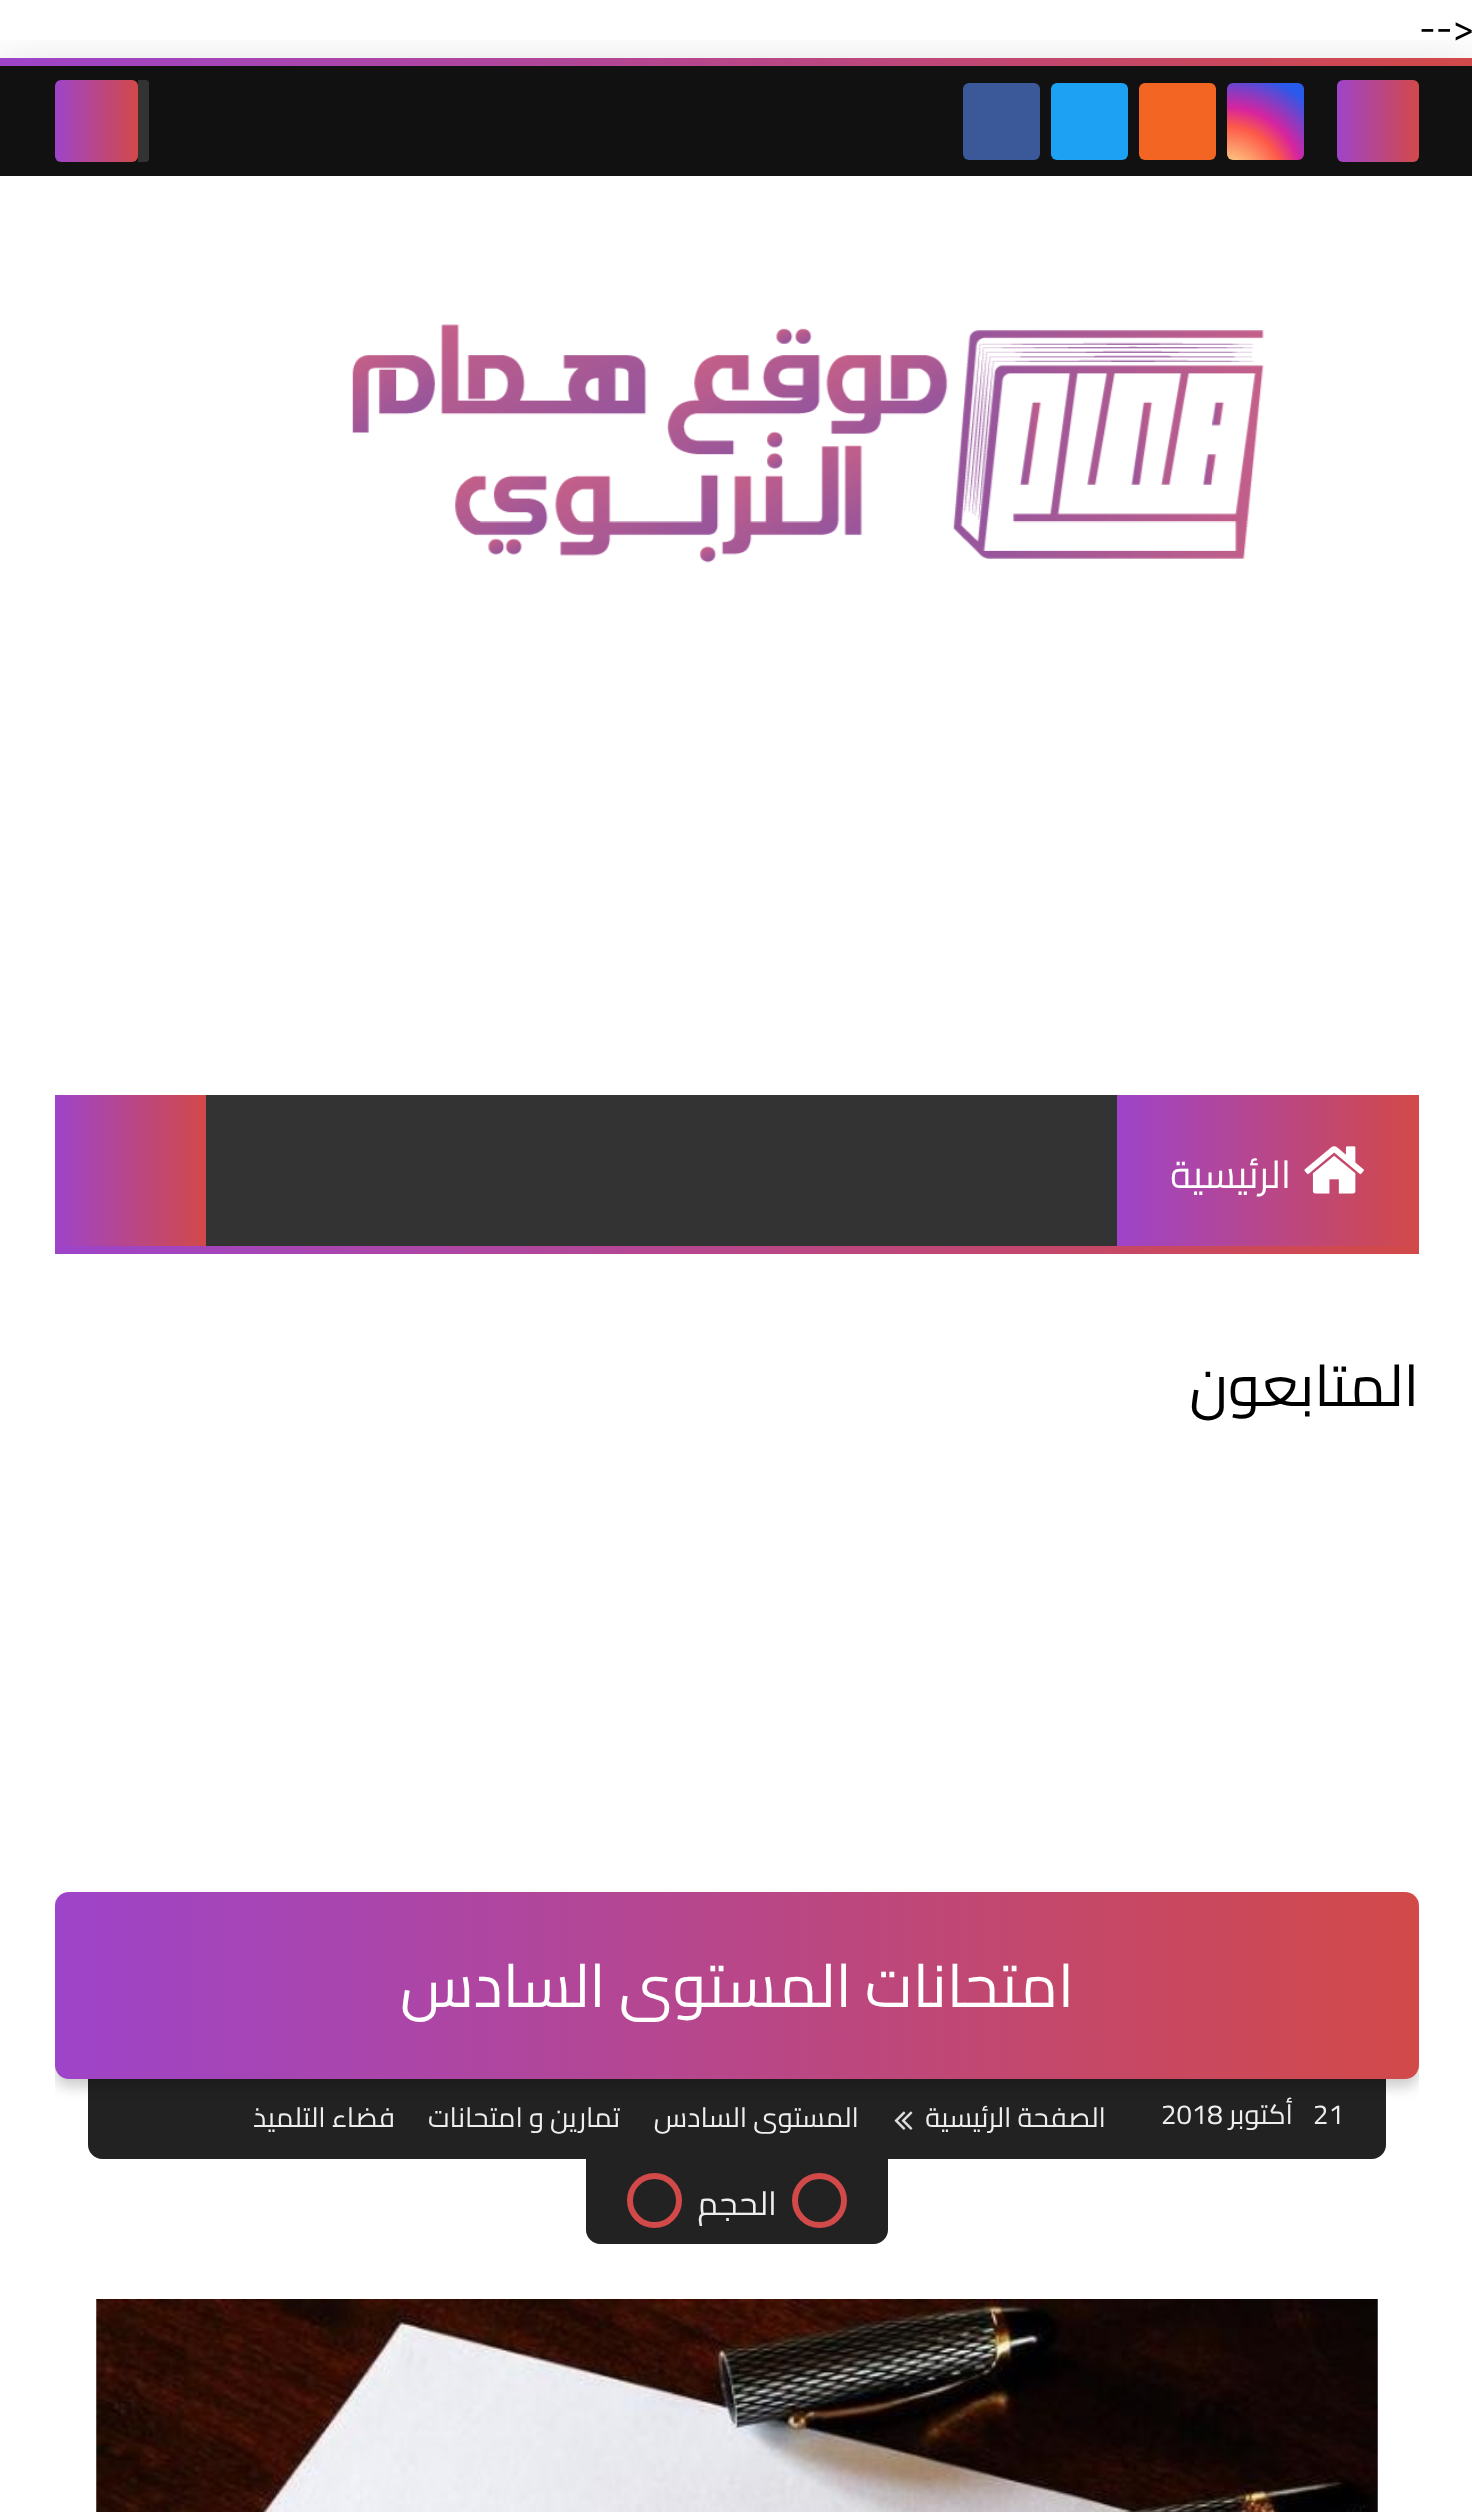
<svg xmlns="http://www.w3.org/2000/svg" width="1472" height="2512">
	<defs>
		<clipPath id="clip1"><rect x="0" y="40" width="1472" height="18" /></clipPath>
		<linearGradient id="g1" gradientUnits="userSpaceOnUse" x1="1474" y1="62" x2="0" y2="62"><stop offset="0" stop-color="#D24949" /><stop offset="1" stop-color="#9E44C9" /></linearGradient>
		<linearGradient id="g2" gradientUnits="userSpaceOnUse" x1="1419" y1="121" x2="1337" y2="121"><stop offset="0" stop-color="#D24949" /><stop offset="1" stop-color="#9E44C9" /></linearGradient>
		<radialGradient id="g3" gradientUnits="userSpaceOnUse" cx="1227" cy="183" r="126"><stop offset="0" stop-color="#FDF497" /><stop offset="0.05" stop-color="#FDF497" /><stop offset="0.45" stop-color="#FD5949" /><stop offset="0.6" stop-color="#D6249F" /><stop offset="0.9" stop-color="#285AEB" /></radialGradient>
		<linearGradient id="g4" gradientUnits="userSpaceOnUse" x1="138" y1="121" x2="55" y2="121"><stop offset="0" stop-color="#D24949" /><stop offset="1" stop-color="#9E44C9" /></linearGradient>
		<linearGradient id="g5" gradientUnits="userSpaceOnUse" x1="1419" y1="1170" x2="1117" y2="1170"><stop offset="0" stop-color="#D24949" /><stop offset="1" stop-color="#9E44C9" /></linearGradient>
		<linearGradient id="g6" gradientUnits="userSpaceOnUse" x1="206" y1="1170" x2="55" y2="1170"><stop offset="0" stop-color="#D24949" /><stop offset="1" stop-color="#9E44C9" /></linearGradient>
		<linearGradient id="g7" gradientUnits="userSpaceOnUse" x1="1419" y1="1250" x2="55" y2="1250"><stop offset="0" stop-color="#D24949" /><stop offset="1" stop-color="#9E44C9" /></linearGradient>
		<clipPath id="clip2"><rect x="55" y="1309" width="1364" height="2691" /></clipPath>
		<linearGradient id="g8" gradientUnits="userSpaceOnUse" x1="1419" y1="1986" x2="55" y2="1986"><stop offset="0" stop-color="#D24949" /><stop offset="1" stop-color="#9E44C9" /></linearGradient>
	</defs>
	<rect width="100%" height="100%" fill="#FFFFFF" />
	<g clip-path="url(#clip1)">
		<rect x="0" y="74" width="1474" height="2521" fill="#000000" fill-opacity="0.19" filter="blur(27.5px)" />
	</g>
	<text x="1419" y="41" font-family="Cairo" font-size="38.5" fill="#000000">--&gt;</text>
	<rect x="0" y="58" width="1472" height="8" fill="url(#g1)" />
	<rect x="0" y="66" width="1472" height="110" fill="#111111" />
	<rect x="1337" y="80" width="82" height="82" rx="6" fill="url(#g2)" />
	<rect x="1227" y="83" width="77" height="77" rx="6" fill="url(#g3)" />
	<rect x="1139" y="83" width="77" height="77" rx="6" fill="#F26522" />
	<rect x="1051" y="83" width="77" height="77" rx="6" fill="#1DA1F2" />
	<rect x="963" y="83" width="77" height="77" rx="6" fill="#3B5998" />
	<path d="M138 80H146C147.5 80 149 81.5 149 83V159C149 160.5 147.5 162 146 162H138Z" fill="#333333" />
	<rect x="55" y="80" width="83" height="82" rx="6" fill="url(#g4)" />
	<image x="352" y="324" width="913" height="239" href="assets/img1.png" />
	<rect x="206" y="1095" width="911" height="151" fill="#333333" />
	<rect x="1117" y="1095" width="302" height="151" fill="url(#g5)" />
	<image x="1304" y="1146" width="60" height="48" href="assets/img2.png" />
	<text x="1291" y="1188" font-family="Cairo" font-size="38.5" direction="rtl" fill="#FFFFFF">الرئيسية</text>
	<rect x="55" y="1095" width="151" height="151" fill="url(#g6)" />
	<rect x="55" y="1246" width="1364" height="8" fill="url(#g7)" />
	<text x="1419" y="1406" font-family="Cairo" font-size="58" direction="rtl" fill="#000000">المتابعون</text>
	<path d="M88 2071H1386V2145C1386 2152.5 1379.5 2159 1372 2159H102C94.5 2159 88 2152.5 88 2145Z" fill="#222222" />
	<g clip-path="url(#clip2)">
		<rect x="55" y="1900" width="1364" height="187" rx="14" fill="#000000" fill-opacity="0.2" filter="blur(7px)" />
	</g>
	<rect x="55" y="1892" width="1364" height="187" rx="14" fill="url(#g8)" />
	<text x="1074" y="2007" font-family="Cairo" font-size="60.5" direction="rtl" fill="#FFFFFF">امتحانات المستوى السادس</text>
	<text x="1313" y="2124" font-family="Cairo" font-size="27.5" fill="#EEEEEE">21</text>
	<text x="1293" y="2124" font-family="Cairo" font-size="27.5" direction="rtl" fill="#EEEEEE">أكتوبر</text>
	<text x="1161" y="2124" font-family="Cairo" font-size="27.5" fill="#EEEEEE">2018</text>
	<text x="1106" y="2127" font-family="Cairo" font-size="27.5" direction="rtl" fill="#EEEEEE">الصفحة الرئيسية</text>
	<image x="894" y="2111" width="19" height="19" href="assets/img3.png" />
	<g font-family="Cairo" font-size="27.5" direction="rtl" fill="#EEEEEE">
		<text x="859" y="2127">المستوى السادس</text>
		<text x="620" y="2127">تمارين و امتحانات</text>
		<text x="395" y="2127">فضاء التلميذ</text>
	</g>
	<path d="M586 2159H888V2230C888 2237.5 881.5 2244 874 2244H600C592.5 2244 586 2237.5 586 2230Z" fill="#222222" />
	<circle cx="819.5" cy="2200.5" r="24.5" fill="none" stroke="#D24949" stroke-width="6" />
	<text x="777" y="2215" font-family="Cairo" font-size="33" direction="rtl" fill="#EEEEEE">الحجم</text>
	<circle cx="654.5" cy="2200.5" r="24.5" fill="none" stroke="#D24949" stroke-width="6" />
	<image x="96" y="2299" width="1282" height="213" href="assets/img4.png" />
</svg>
